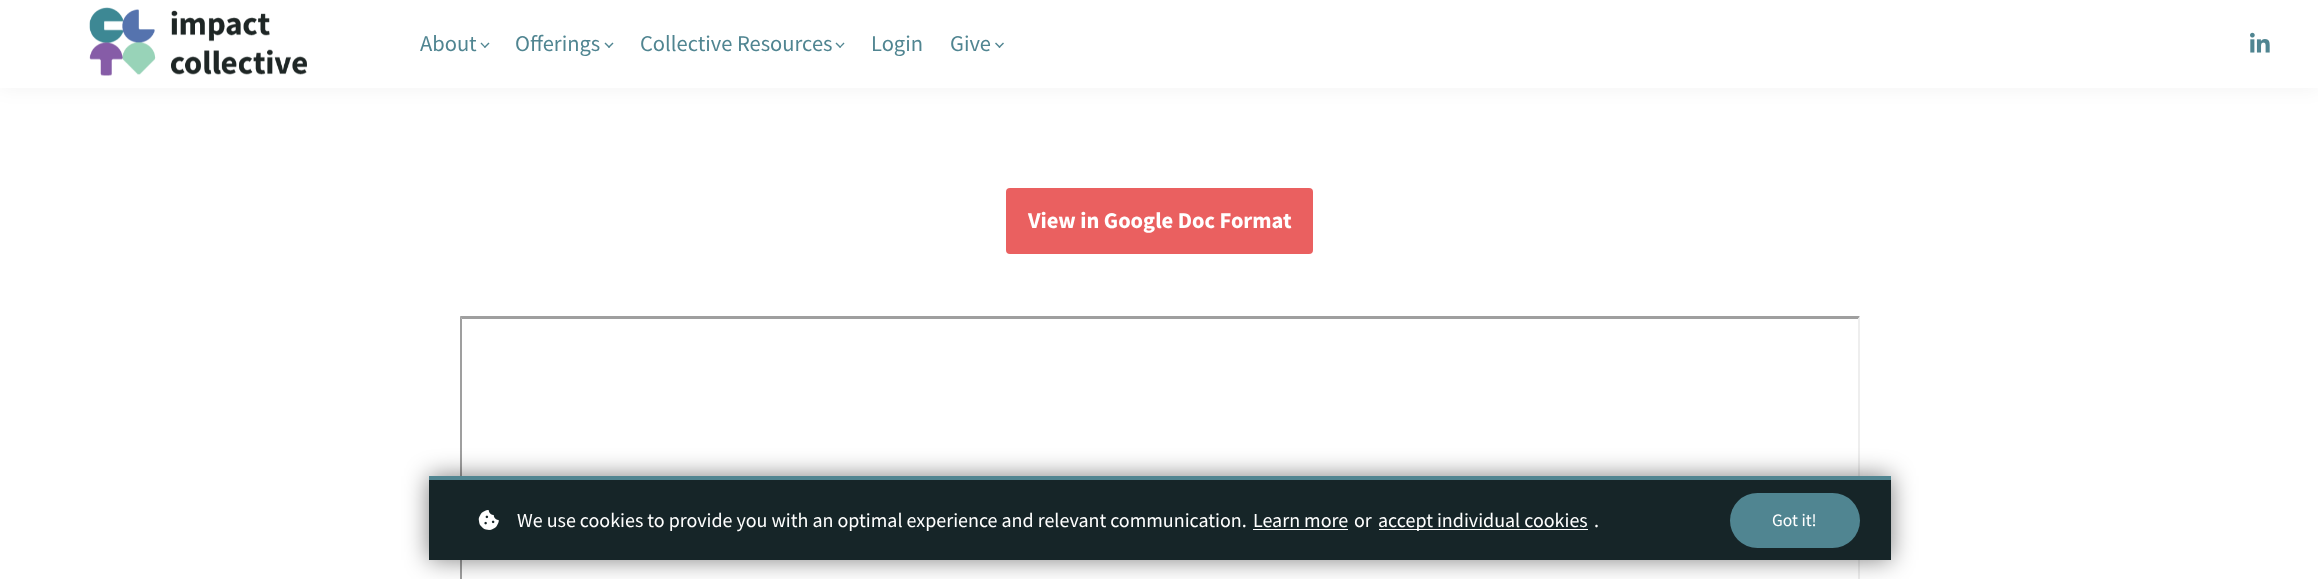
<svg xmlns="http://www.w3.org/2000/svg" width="2318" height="579">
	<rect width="100%" height="100%" fill="#FFFFFF" />
	<rect x="0" y="0" width="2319" height="88" fill="#000000" fill-opacity="0.05" filter="blur(9.5px)" />
	<rect x="0" y="0" width="2318" height="88" fill="#FFFFFF" />
	<image x="89" y="7" width="218" height="69" href="assets/img1.png" />
	<text x="420" y="51" font-family="Source Sans Pro" font-size="22.5" fill="#508591">About</text>
	<path d="M489.5 43.5L485 48L484 47L488.5 42.5Z" fill="#508591" />
	<path d="M485.5 47L485 48L480.5 43.5L481.5 42.5Z" fill="#508591" />
	<text x="515" y="51" font-family="Source Sans Pro" font-size="22.5" fill="#508591">Offerings</text>
	<path d="M613.5 43.5L609 48L608 47L612.5 42.5Z" fill="#508591" />
	<path d="M610 47L609 48L604.5 43.5L605.5 42.5Z" fill="#508591" />
	<text x="640" y="51" font-family="Source Sans Pro" font-size="22.5" fill="#508591">Collective Resources</text>
	<path d="M844.5 43.5L840 48L839.5 47L843.5 42.5Z" fill="#508591" />
	<path d="M841 47L840 48L835.5 43.5L836.5 42.5Z" fill="#508591" />
	<g font-family="Source Sans Pro" font-size="22.5" fill="#508591">
		<text x="871" y="51">Login</text>
		<text x="950" y="51">Give</text>
	</g>
	<path d="M1004 43.5L999.5 48L998.5 47L1003 42.5Z" fill="#508591" />
	<path d="M1000.5 47L999.5 48L995 43.5L996 42.5Z" fill="#508591" />
	<image x="2250" y="32" width="20" height="21" href="assets/img2.png" />
	<rect x="1006" y="188" width="307" height="66" rx="4" fill="#EA6060" />
	<text x="1028" y="228" font-family="Source Sans Pro" font-size="22.5" font-weight="700" fill="#FFFFFF">View in Google Doc Format</text>
	<path d="M460 316H1860L1858 319H462Z" fill="#9F9F9F" />
	<path d="M1860 316V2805L1858 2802V319Z" fill="#EEEEEE" />
	<path d="M460 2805V316L462 319V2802Z" fill="#9F9F9F" />
	<rect x="429" y="476" width="1462" height="84" fill="#000000" fill-opacity="0.5" filter="blur(12.5px)" />
	<rect x="429" y="480" width="1462" height="80" fill="#162528" />
	<rect x="429" y="476" width="1462" height="4" fill="#508591" />
	<image x="478" y="510" width="21" height="20" href="assets/img3.png" />
	<g font-family="Source Sans Pro" font-size="20" fill="#FFFFFF">
		<text x="517" y="527">We use cookies to provide you with an optimal experience and relevant communication.</text>
		<text x="1253" y="527">Learn more</text>
	</g>
	<rect x="1253" y="529" width="95" height="1" fill="#FFFFFF" />
	<text x="1354" y="527" font-family="Source Sans Pro" font-size="20" fill="#FFFFFF">or</text>
	<rect x="1379" y="529" width="209" height="1" fill="#FFFFFF" />
	<g font-family="Source Sans Pro" font-size="20" fill="#FFFFFF">
		<text x="1378" y="527">accept individual cookies</text>
		<text x="1594" y="527">.</text>
	</g>
	<rect x="1730" y="493" width="130" height="55" rx="27.5" fill="#508591" />
	<text x="1772" y="526" font-family="Source Sans Pro" font-size="17.5" fill="#FFFFFF">Got it!</text>
</svg>
